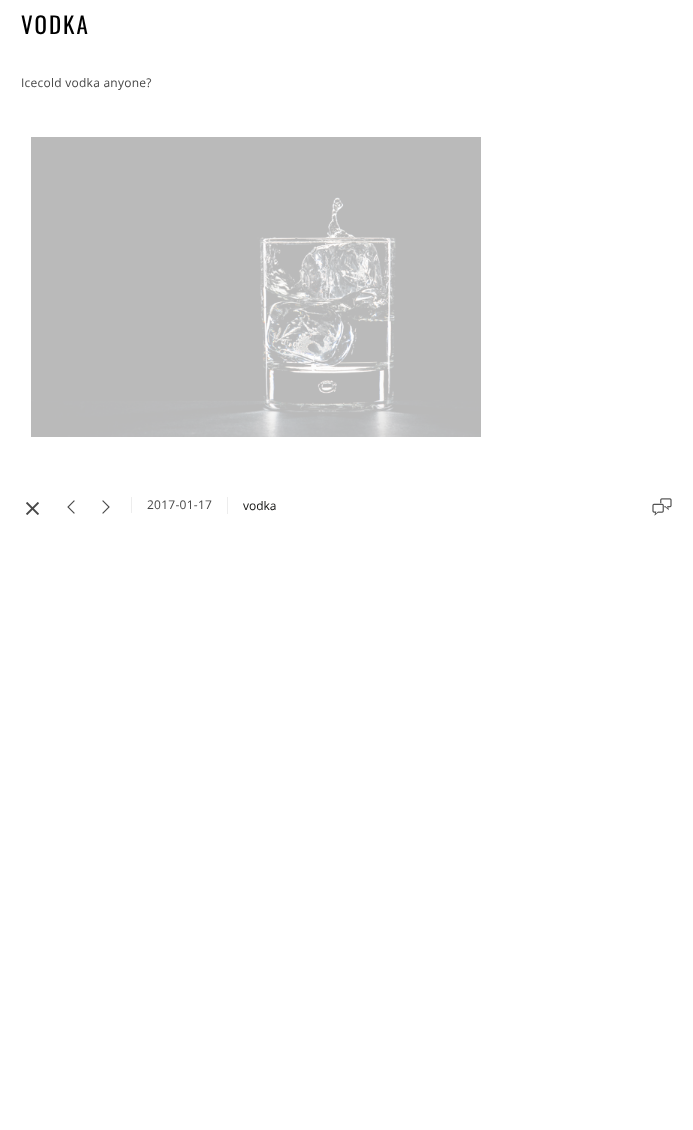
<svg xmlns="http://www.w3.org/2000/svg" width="693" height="1130">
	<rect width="100%" height="100%" fill="#FFFFFF" />
	<text x="21" y="34" font-family="Oswald" font-size="23" letter-spacing="2" fill="#000000">VODKA</text>
	<text x="21" y="87" font-family="Open Sans" font-size="12" letter-spacing="0.25" fill="#474747">Icecold vodka anyone?</text>
	<image x="31" y="137" width="450" height="300" href="assets/img1.png" />
	<image x="26" y="502" width="13" height="13" href="assets/img2.png" />
	<image x="67" y="500" width="8" height="14" href="assets/img3.png" />
	<image x="102" y="500" width="8" height="14" href="assets/img4.png" />
	<rect x="131" y="497" width="1" height="16" fill="#EDEDED" />
	<text x="147" y="509" font-family="Open Sans" font-size="12" letter-spacing="0.25" fill="#474747">2017-01-17</text>
	<rect x="227" y="497" width="1" height="17" fill="#EDEDED" />
	<text x="243" y="510" font-family="Open Sans" font-size="12" fill="#0F0F0E">vodka</text>
	<image x="652" y="498" width="20" height="18" href="assets/img5.png" />
</svg>
